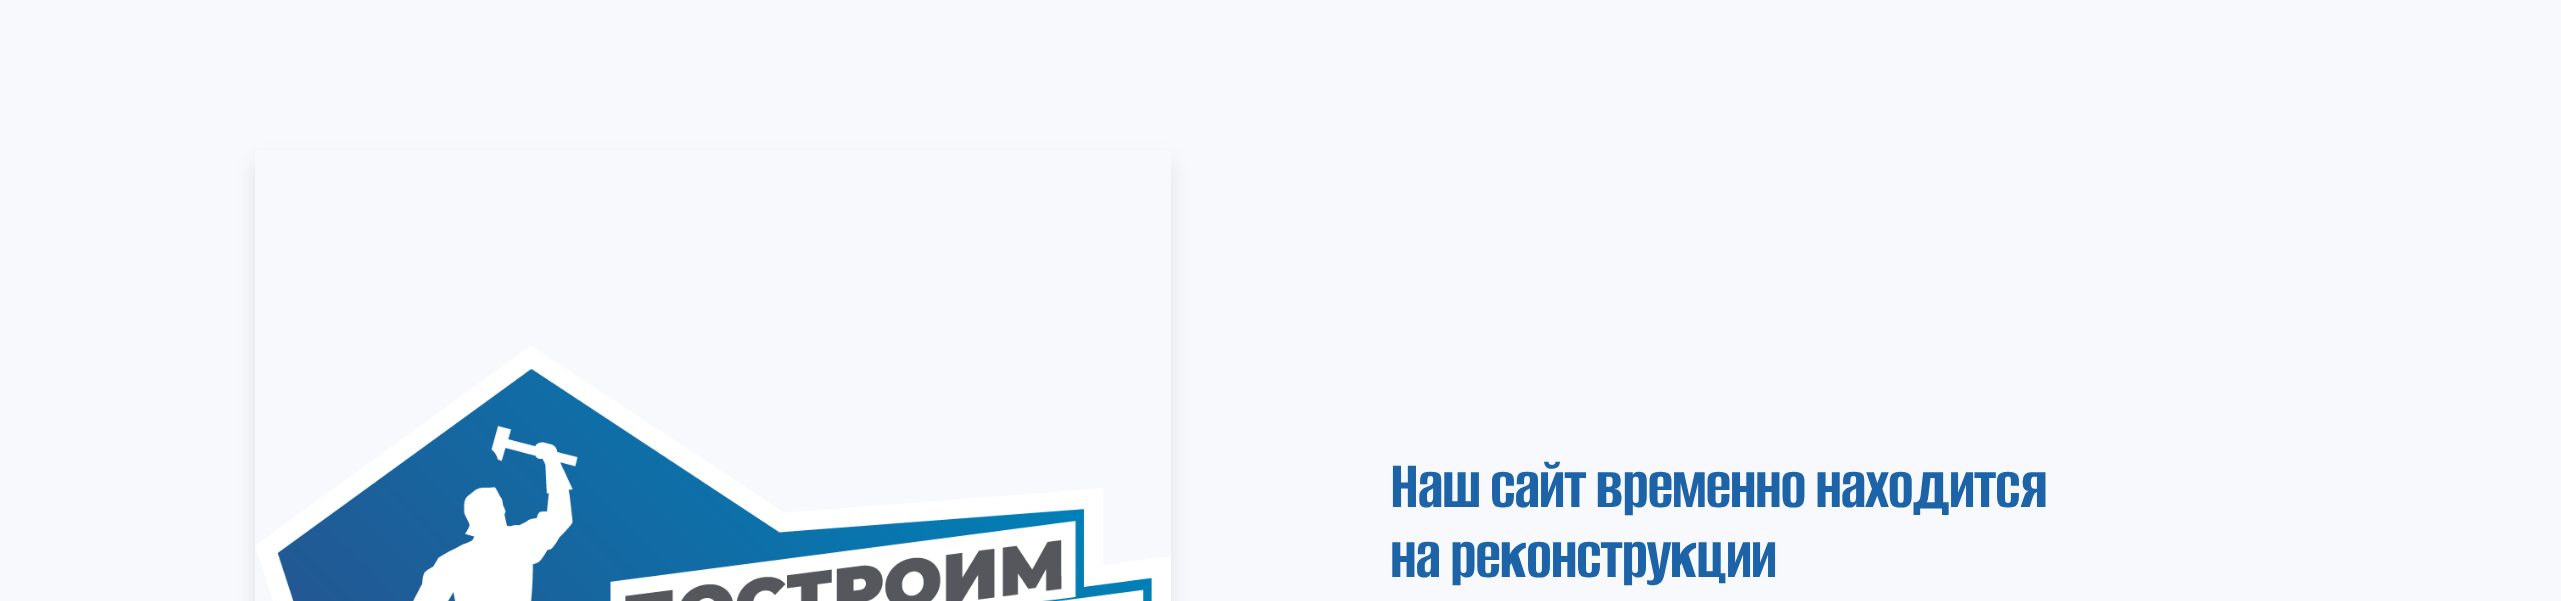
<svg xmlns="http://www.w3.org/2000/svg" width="2561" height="601">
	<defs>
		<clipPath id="clip1"><path d="M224 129H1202V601H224ZM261 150H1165C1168.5 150 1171 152.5 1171 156V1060C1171 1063.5 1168.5 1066 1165 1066H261C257.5 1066 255 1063.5 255 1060V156C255 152.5 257.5 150 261 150Z" clip-rule="evenodd" /></clipPath>
	</defs>
	<rect width="100%" height="100%" fill="#F7F9FC" />
	<g clip-path="url(#clip1)">
		<rect x="255" y="160" width="916" height="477" rx="6" fill="#000000" fill-opacity="0.09" filter="blur(10px)" />
	</g>
	<image x="255" y="346" width="916" height="255" href="assets/img1.png" />
	<g font-family="Alumni Sans" font-size="70" font-weight="700" letter-spacing="-1.4" fill="#1C63A8">
		<text x="1390" y="507">Наш сайт временно находится</text>
		<text x="1390" y="577">на реконструкции</text>
	</g>
</svg>
